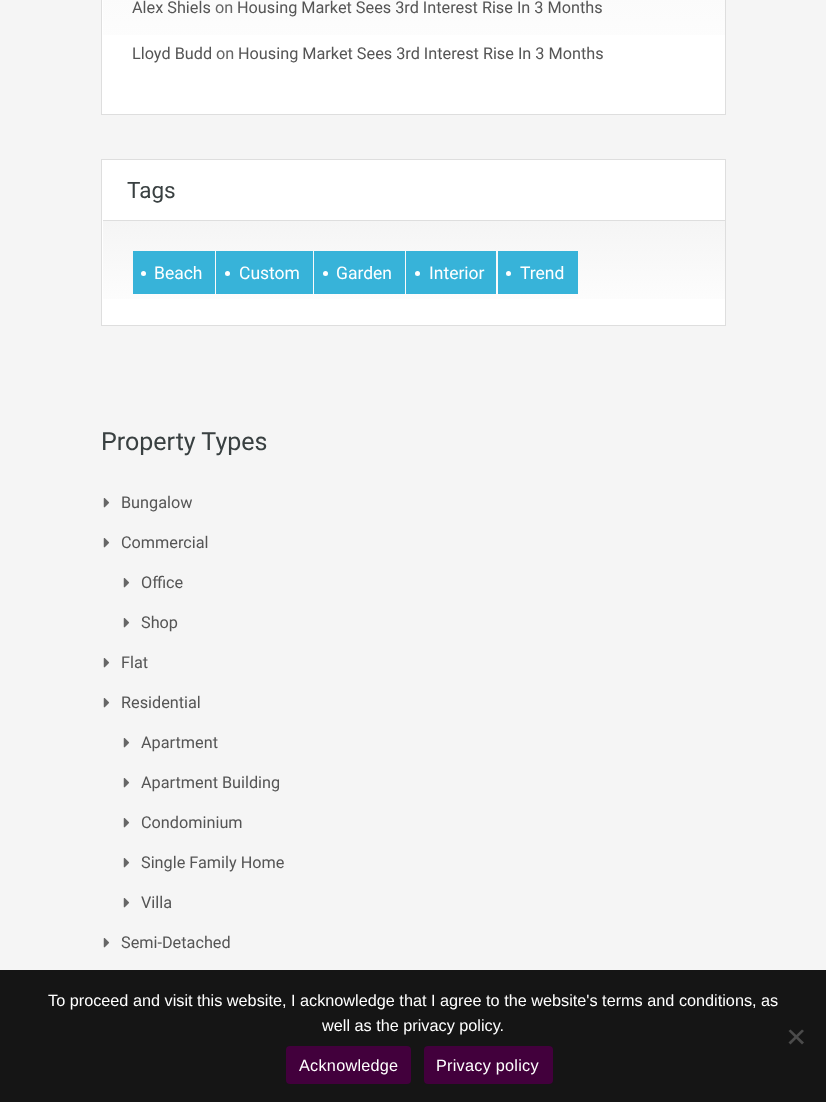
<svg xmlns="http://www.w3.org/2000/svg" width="826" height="1102">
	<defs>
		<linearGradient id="g1" gradientUnits="userSpaceOnUse" x1="414" y1="101" x2="414" y2="-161"><stop offset="0" stop-color="#FFFFFF" /><stop offset="1" stop-color="#F5F5F5" /></linearGradient>
		<linearGradient id="g2" gradientUnits="userSpaceOnUse" x1="414" y1="325" x2="414" y2="221"><stop offset="0" stop-color="#FFFFFF" /><stop offset="1" stop-color="#F5F5F5" /></linearGradient>
	</defs>
	<rect width="100%" height="100%" fill="#F5F5F5" />
	<rect x="101.5" y="-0.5" width="624" height="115" fill="#FFFFFF" stroke="#DEDEDE" />
	<rect x="103" y="0" width="622" height="35" fill="url(#g1)" />
	<text x="132" y="13" font-family="Roboto" font-size="16.25" fill="#555555">Alex Shiels</text>
	<text x="215" y="13" font-family="Roboto" font-size="16.25" fill="#666666">on</text>
	<g font-family="Roboto" font-size="16.25" fill="#555555">
		<text x="237" y="13">Housing Market Sees 3rd Interest Rise In 3 Months</text>
		<text x="132" y="59">Lloyd Budd</text>
	</g>
	<text x="216" y="59" font-family="Roboto" font-size="16.25" fill="#666666">on</text>
	<text x="238" y="59" font-family="Roboto" font-size="16.25" fill="#555555">Housing Market Sees 3rd Interest Rise In 3 Months</text>
	<rect x="101.5" y="159.5" width="624" height="166" fill="#FFFFFF" stroke="#DEDEDE" />
	<rect x="103" y="220" width="622" height="1" fill="#DEDEDE" />
	<text x="127" y="198" font-family="Roboto" font-size="22.5" fill="#394041">Tags</text>
	<rect x="103" y="221" width="622" height="78" fill="url(#g2)" />
	<rect x="133" y="251" width="82" height="43" fill="#37B3D9" />
	<circle cx="143.5" cy="273.5" r="2.5" fill="#FFFFFF" />
	<text x="154" y="279" font-family="Roboto" font-size="17.5" fill="#FFFFFF">Beach</text>
	<rect x="216" y="251" width="97" height="43" fill="#37B3D9" />
	<circle cx="227.5" cy="273.5" r="2.5" fill="#FFFFFF" />
	<text x="239" y="279" font-family="Roboto" font-size="17.5" fill="#FFFFFF">Custom</text>
	<rect x="314" y="251" width="91" height="43" fill="#37B3D9" />
	<circle cx="325.5" cy="273.5" r="2.5" fill="#FFFFFF" />
	<text x="336" y="279" font-family="Roboto" font-size="17.5" fill="#FFFFFF">Garden</text>
	<rect x="406" y="251" width="90" height="43" fill="#37B3D9" />
	<circle cx="417.5" cy="273.5" r="2.5" fill="#FFFFFF" />
	<text x="429" y="279" font-family="Roboto" font-size="17.5" fill="#FFFFFF">Interior</text>
	<rect x="498" y="251" width="80" height="43" fill="#37B3D9" />
	<circle cx="508.5" cy="273.5" r="2.5" fill="#FFFFFF" />
	<text x="520" y="279" font-family="Roboto" font-size="17.5" fill="#FFFFFF">Trend</text>
	<text x="101" y="450" font-family="Roboto" font-size="25" fill="#394041">Property Types</text>
	<image x="103" y="498" width="7" height="10" href="assets/img1.png" />
	<text x="121" y="508" font-family="Roboto" font-size="16.25" fill="#555555">Bungalow</text>
	<image x="103" y="538" width="7" height="10" href="assets/img1.png" />
	<text x="121" y="548" font-family="Roboto" font-size="16.25" fill="#555555">Commercial</text>
	<image x="123" y="578" width="7" height="10" href="assets/img1.png" />
	<text x="141" y="588" font-family="Roboto" font-size="16.25" fill="#555555">Office</text>
	<image x="123" y="618" width="7" height="10" href="assets/img1.png" />
	<text x="141" y="628" font-family="Roboto" font-size="16.25" fill="#555555">Shop</text>
	<image x="103" y="658" width="7" height="10" href="assets/img1.png" />
	<text x="121" y="668" font-family="Roboto" font-size="16.25" fill="#555555">Flat</text>
	<image x="103" y="698" width="7" height="10" href="assets/img1.png" />
	<text x="121" y="708" font-family="Roboto" font-size="16.25" fill="#555555">Residential</text>
	<image x="123" y="738" width="7" height="10" href="assets/img1.png" />
	<text x="141" y="748" font-family="Roboto" font-size="16.25" fill="#555555">Apartment</text>
	<image x="123" y="778" width="7" height="10" href="assets/img1.png" />
	<text x="141" y="788" font-family="Roboto" font-size="16.25" fill="#555555">Apartment Building</text>
	<image x="123" y="818" width="7" height="10" href="assets/img1.png" />
	<text x="141" y="828" font-family="Roboto" font-size="16.25" fill="#555555">Condominium</text>
	<image x="123" y="858" width="7" height="10" href="assets/img1.png" />
	<text x="141" y="868" font-family="Roboto" font-size="16.25" fill="#555555">Single Family Home</text>
	<image x="123" y="898" width="7" height="10" href="assets/img1.png" />
	<text x="141" y="908" font-family="Roboto" font-size="16.25" fill="#555555">Villa</text>
	<image x="103" y="938" width="7" height="10" href="assets/img1.png" />
	<text x="121" y="948" font-family="Roboto" font-size="16.25" fill="#555555">Semi-Detached</text>
	<rect x="0" y="970" width="826" height="132" fill="#151515" />
	<g font-family="Liberation Sans" font-size="16.25" fill="#FFFFFF">
		<text x="48" y="1006">To proceed and visit this website, I acknowledge that I agree to the website's terms and conditions, as</text>
		<text x="322" y="1031">well as the privacy policy.</text>
	</g>
	<path d="M802 1029.5L804 1031L790.5 1044.5L788.5 1042.5Z" fill="#4B4B4B" />
	<path d="M788.5 1031L790.5 1029.5L804 1042.5L802 1044.5Z" fill="#4B4B4B" />
	<rect x="286" y="1046" width="125" height="38" rx="4" fill="#42003C" />
	<text x="299" y="1071" font-family="Liberation Sans" font-size="16.25" letter-spacing="0.25" fill="#FFFFFF">Acknowledge</text>
	<rect x="424" y="1046" width="129" height="38" rx="4" fill="#42003C" />
	<text x="436" y="1071" font-family="Liberation Sans" font-size="16.25" letter-spacing="0.25" fill="#FFFFFF">Privacy policy</text>
</svg>
